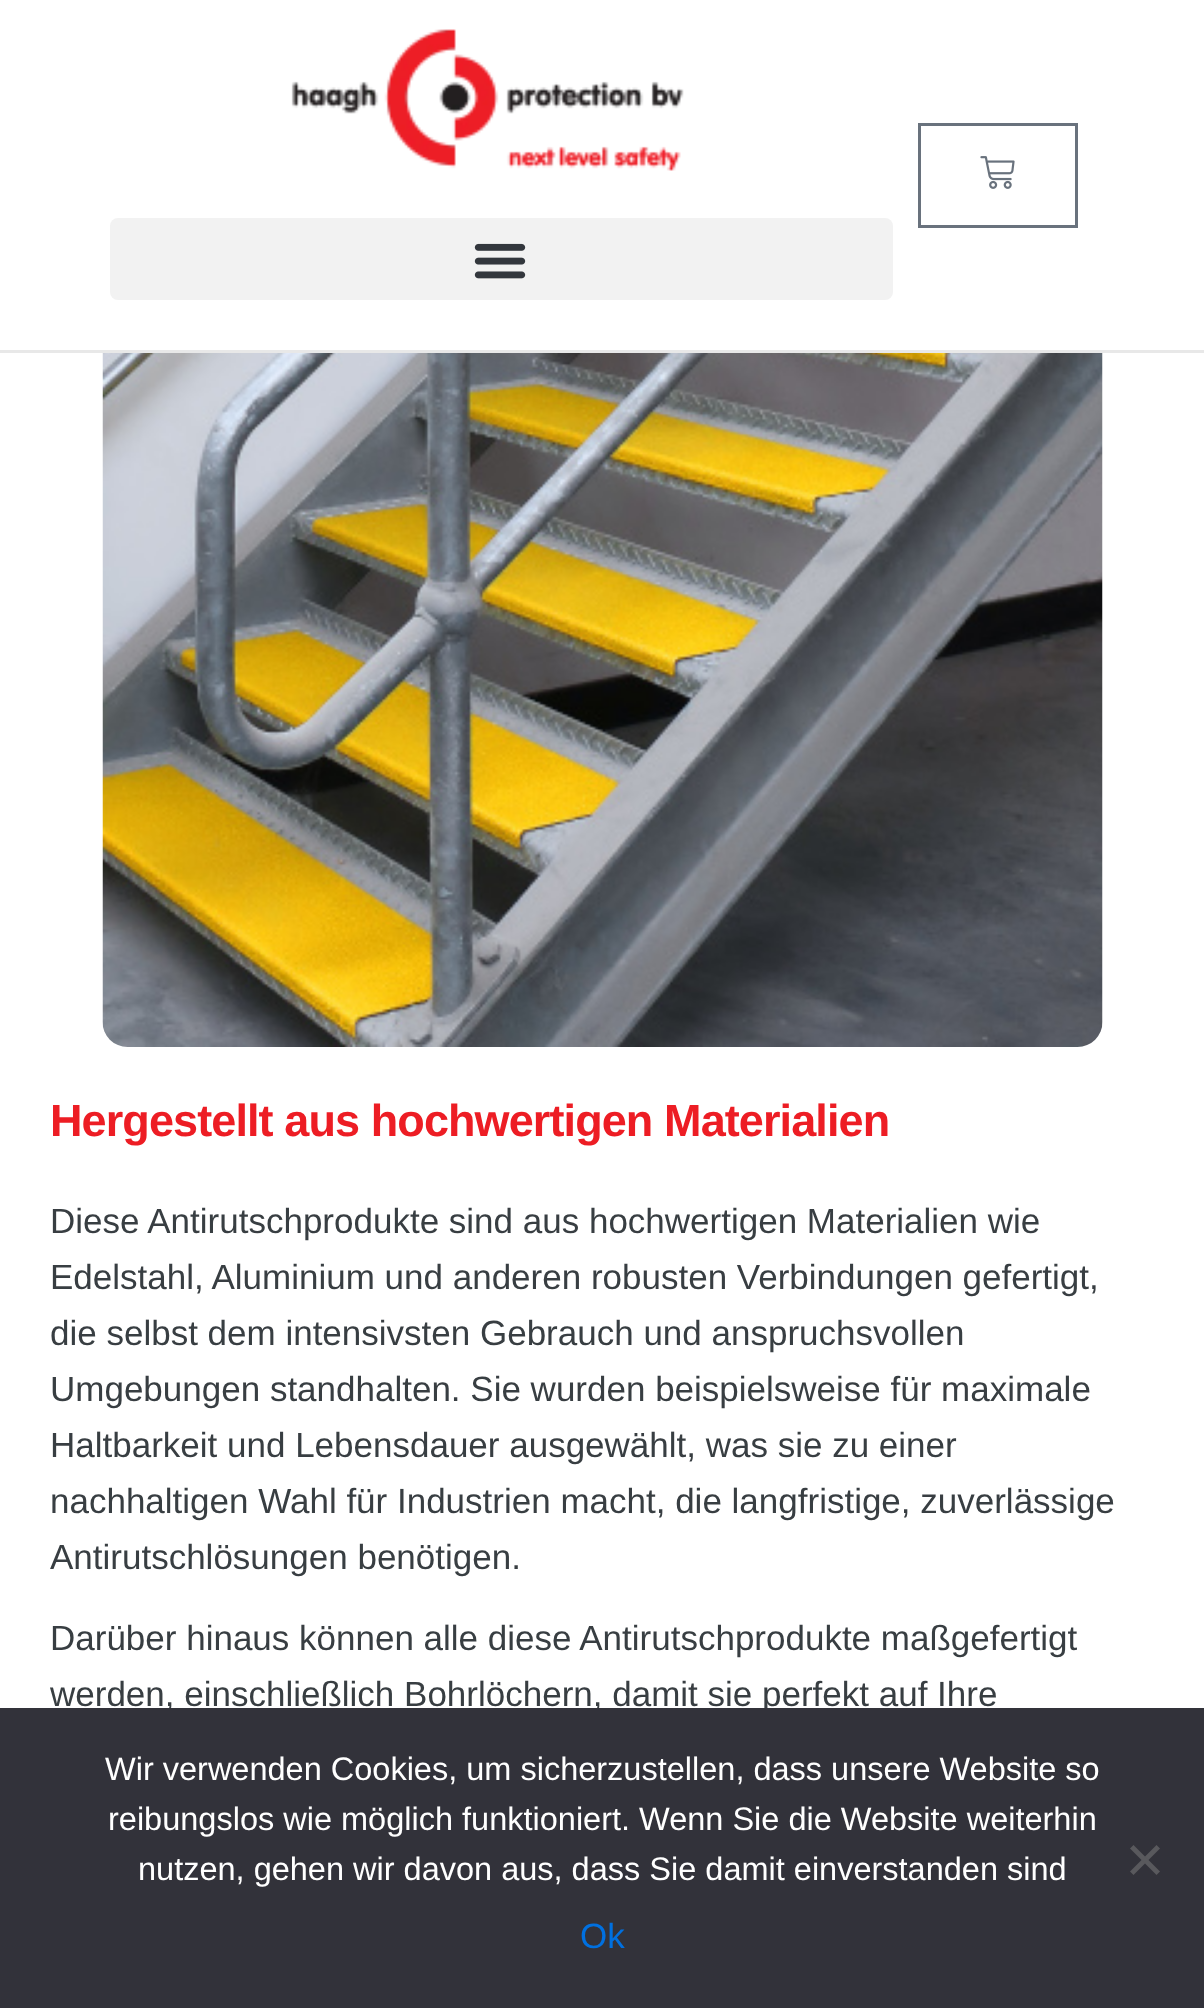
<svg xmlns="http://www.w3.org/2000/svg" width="1204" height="2008">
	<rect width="100%" height="100%" fill="#FFFFFF" />
	<rect x="0" y="350" width="1204" height="3" fill="#E8E8E8" />
	<image x="291" y="29" width="393" height="142" href="assets/img1.png" />
	<rect x="110" y="218" width="783" height="82" rx="8" fill="#F2F2F2" />
	<image x="474" y="243" width="52" height="36" href="assets/img2.png" />
	<rect x="919.5" y="124.5" width="157" height="102" fill="none" stroke="#69727D" stroke-width="3" />
	<image x="980" y="156" width="35" height="33" href="assets/img3.png" />
	<image x="102" y="353" width="1001" height="694" href="assets/img4.png" />
	<text x="50" y="1136" font-family="Liberation Sans" font-size="45" font-weight="700" letter-spacing="-0.9" fill="#ED1D24">Hergestellt aus hochwertigen Materialien</text>
	<g font-family="Liberation Sans" font-size="35" fill="#383E42">
		<text x="50" y="1233">Diese Antirutschprodukte sind aus hochwertigen Materialien wie</text>
		<text x="50" y="1289">Edelstahl, Aluminium und anderen robusten Verbindungen gefertigt,</text>
		<text x="50" y="1345">die selbst dem intensivsten Gebrauch und anspruchsvollen</text>
		<text x="50" y="1401">Umgebungen standhalten. Sie wurden beispielsweise für maximale</text>
		<text x="50" y="1457">Haltbarkeit und Lebensdauer ausgewählt, was sie zu einer</text>
		<text x="50" y="1513">nachhaltigen Wahl für Industrien macht, die langfristige, zuverlässige</text>
		<text x="50" y="1569">Antirutschlösungen benötigen.</text>
		<text x="50" y="1650">Darüber hinaus können alle diese Antirutschprodukte maßgefertigt</text>
		<text x="50" y="1706">werden, einschließlich Bohrlöchern, damit sie perfekt auf Ihre</text>
	</g>
	<rect x="0" y="1708" width="1204" height="300" fill="#32323A" />
	<g font-family="Liberation Sans" font-size="32.5" fill="#FFFFFF">
		<text x="105" y="1780">Wir verwenden Cookies, um sicherzustellen, dass unsere Website so</text>
		<text x="108" y="1830">reibungslos wie möglich funktioniert. Wenn Sie die Website weiterhin</text>
		<text x="138" y="1880">nutzen, gehen wir davon aus, dass Sie damit einverstanden sind</text>
	</g>
	<path d="M1156.5 1845L1160 1848.5L1133.5 1875L1130 1871.5Z" fill="#59595D" />
	<path d="M1130 1848.5L1133.5 1845L1160 1871.5L1156.5 1875Z" fill="#59595D" />
	<text x="580" y="1948" font-family="Liberation Sans" font-size="35" fill="#0070E0">Ok</text>
</svg>
